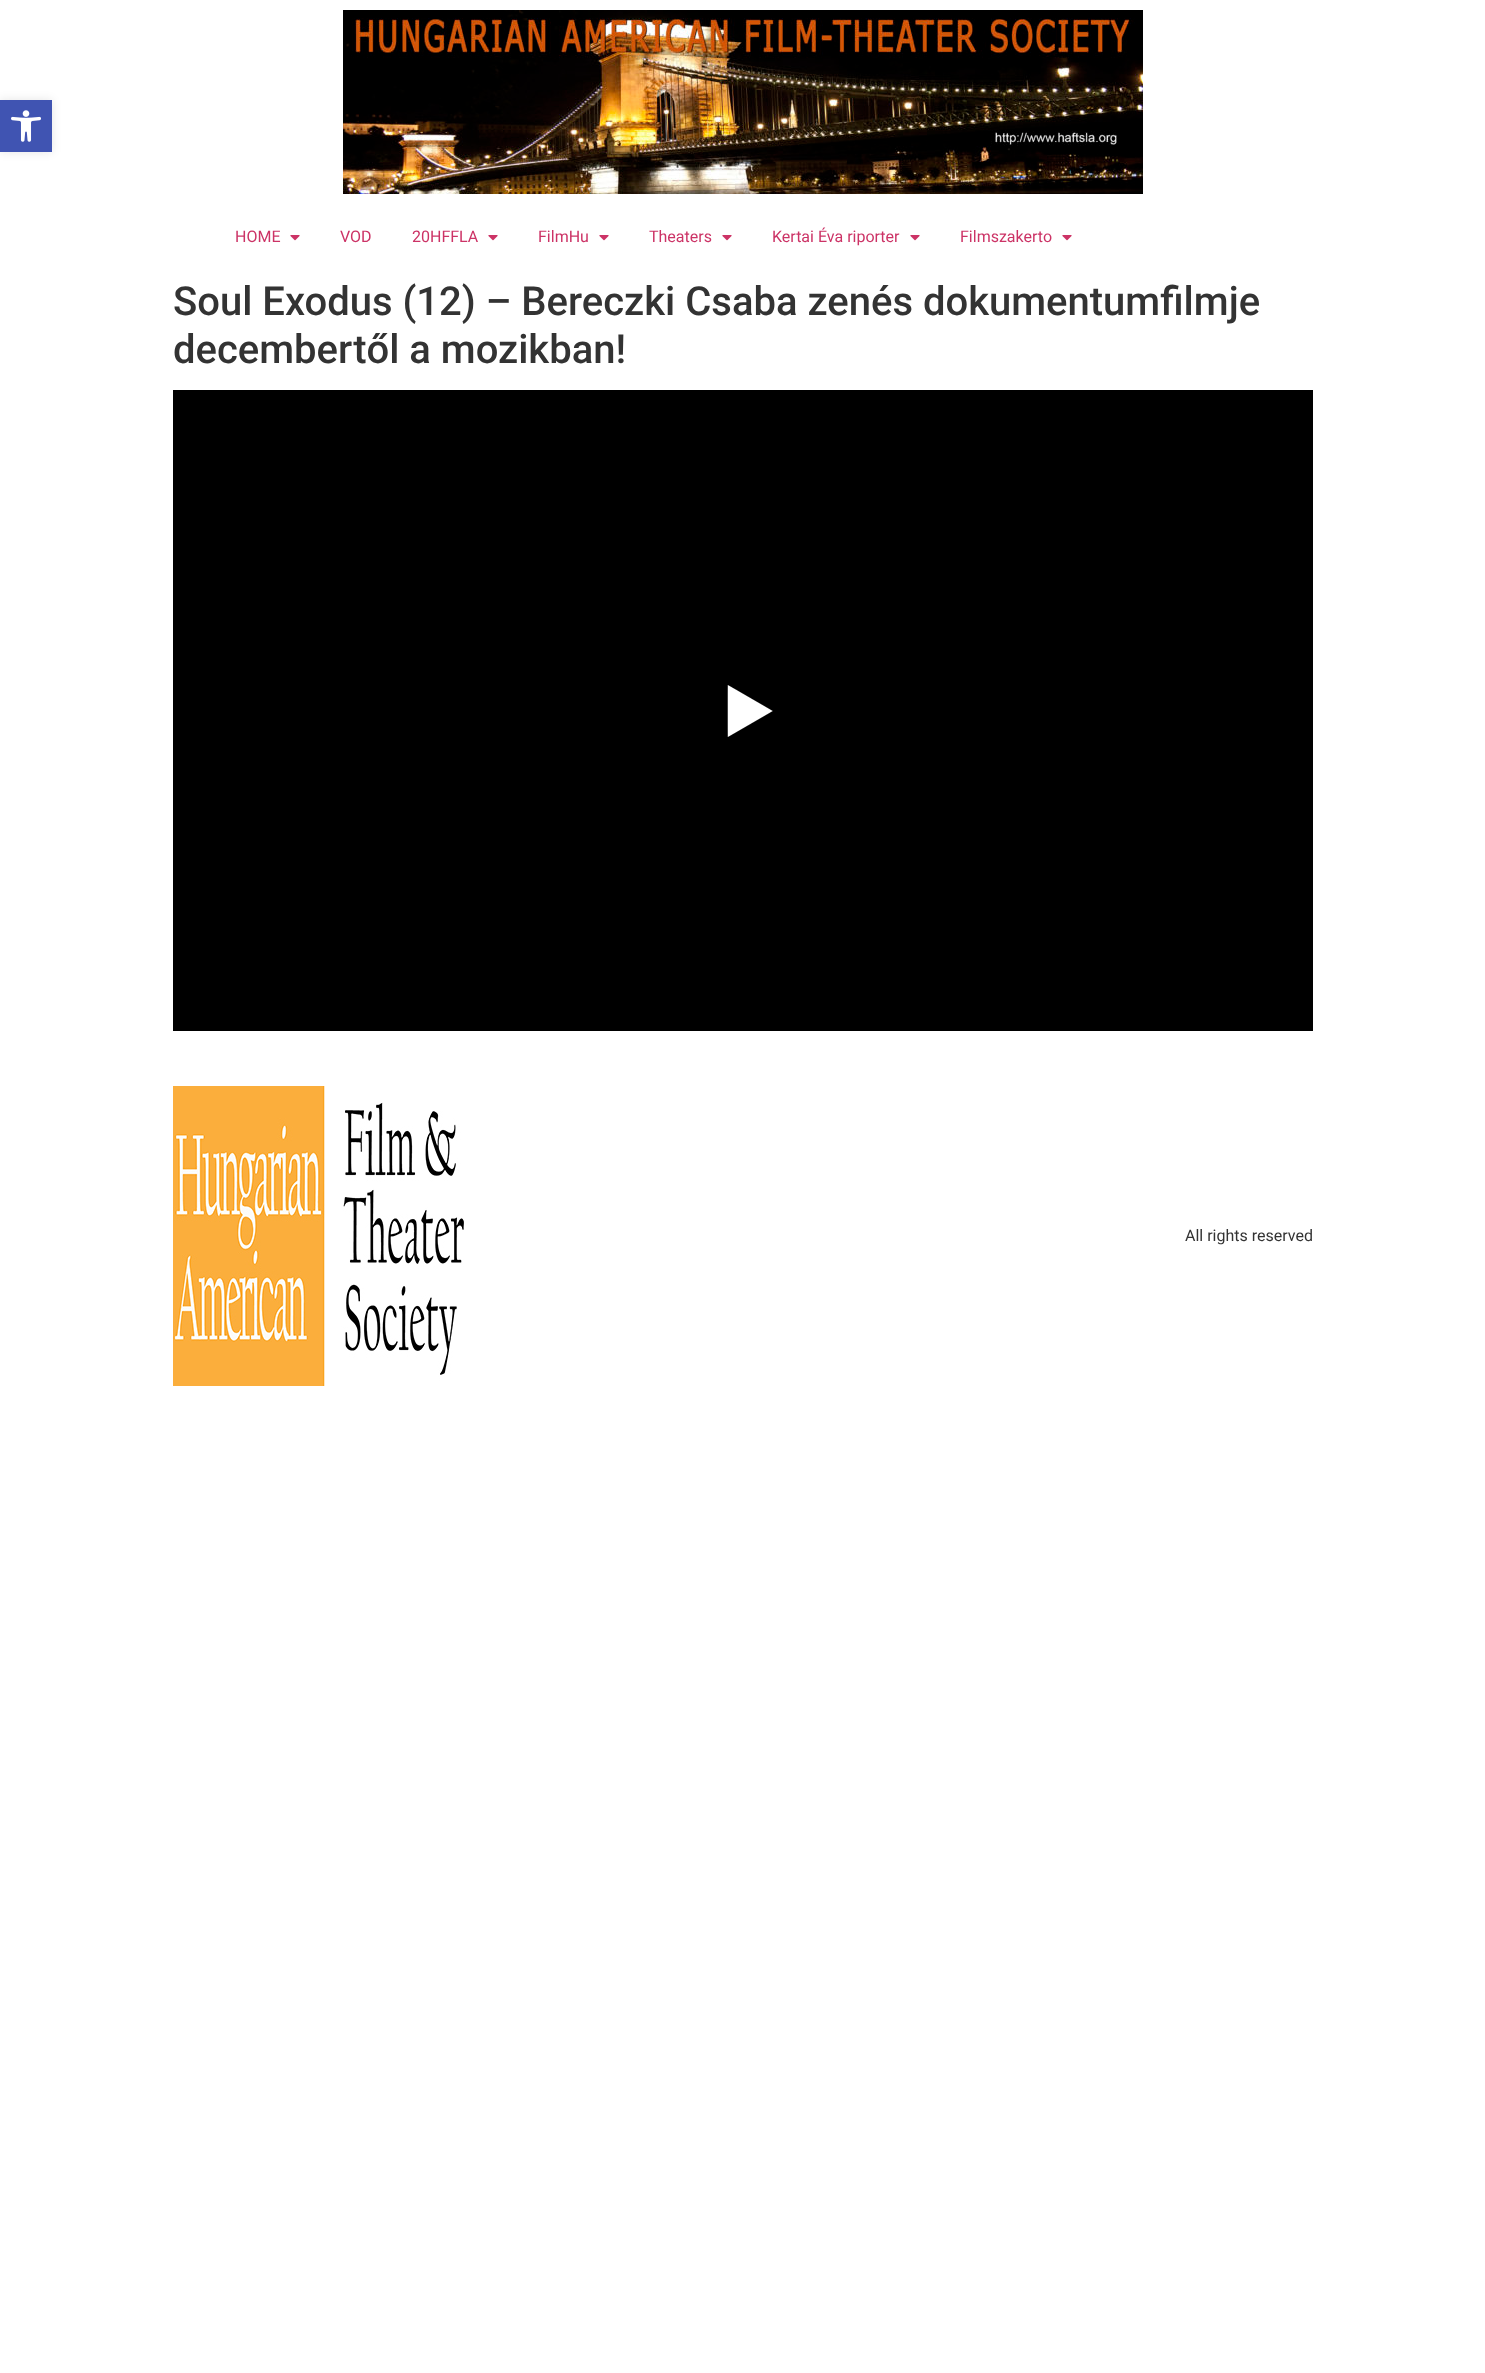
<svg xmlns="http://www.w3.org/2000/svg" width="1485" height="2373">
	<rect width="100%" height="100%" fill="#FFFFFF" />
	<rect x="0" y="100" width="52" height="52" fill="#000000" fill-opacity="0.1" filter="blur(5px)" />
	<rect x="0" y="100" width="52" height="52" fill="#4054B2" />
	<image x="11" y="110" width="30" height="32" href="assets/img1.png" />
	<image x="343" y="10" width="800" height="184" href="assets/img2.png" />
	<text x="235" y="242" font-family="Roboto" font-size="16" fill="#CC3366">HOME</text>
	<image x="290" y="235" width="10" height="6" href="assets/img3.png" />
	<g font-family="Roboto" font-size="16" fill="#CC3366">
		<text x="340" y="242">VOD</text>
		<text x="412" y="242">20HFFLA</text>
	</g>
	<image x="488" y="235" width="10" height="6" href="assets/img3.png" />
	<text x="538" y="242" font-family="Roboto" font-size="16" fill="#CC3366">FilmHu</text>
	<image x="599" y="235" width="10" height="6" href="assets/img3.png" />
	<text x="649" y="242" font-family="Roboto" font-size="16" fill="#CC3366">Theaters</text>
	<image x="722" y="235" width="10" height="6" href="assets/img3.png" />
	<text x="772" y="242" font-family="Roboto" font-size="16" fill="#CC3366">Kertai Éva riporter</text>
	<image x="910" y="235" width="10" height="6" href="assets/img3.png" />
	<text x="960" y="242" font-family="Roboto" font-size="16" fill="#CC3366">Filmszakerto</text>
	<image x="1062" y="235" width="10" height="6" href="assets/img3.png" />
	<g font-family="Roboto" font-size="40" font-weight="500" fill="#333333">
		<text x="173" y="315">Soul Exodus (12) – Bereczki Csaba zenés dokumentumfilmje</text>
		<text x="173" y="363">decembertől a mozikban!</text>
	</g>
	<rect x="173" y="390" width="1140" height="641" fill="#000000" />
	<image x="727" y="685" width="46" height="52" href="assets/img4.png" />
	<image x="173" y="1086" width="291" height="300" href="assets/img5.png" />
	<text x="1185" y="1241" font-family="Roboto" font-size="16" fill="#333333">All rights reserved</text>
</svg>
